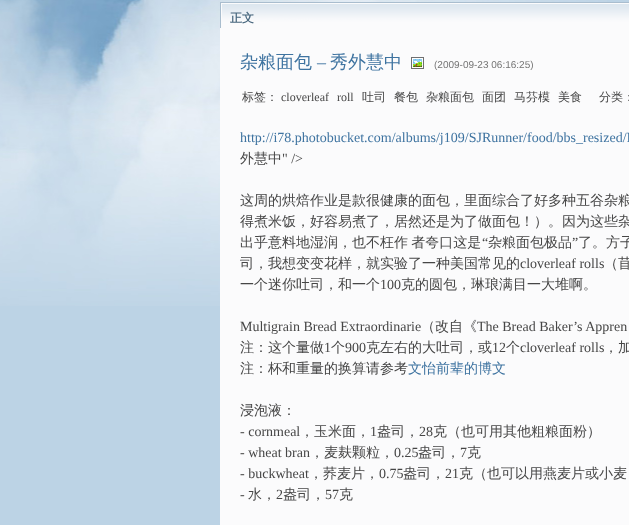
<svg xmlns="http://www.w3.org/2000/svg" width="629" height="525">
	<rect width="100%" height="100%" fill="#BCD3E5" />
	<image x="0" y="0" width="607" height="306" href="assets/img1.png" />
	<image x="220" y="2" width="409" height="26" href="assets/img2.png" />
	<text x="230" y="22" font-family="WenQuanYi Zen Hei" font-size="12" font-weight="700" fill="#49687F">正文</text>
	<rect x="220" y="28" width="409" height="497" fill="#FBFBFC" />
	<text x="240" y="68" font-family="WenQuanYi Zen Hei" font-size="18" font-weight="500" fill="#3E73A0">杂粮面包</text>
	<text x="317" y="68" font-family="Liberation Serif" font-size="18" fill="#3E73A0">–</text>
	<text x="330" y="68" font-family="WenQuanYi Zen Hei" font-size="18" font-weight="500" fill="#3E73A0">秀外慧中</text>
	<image x="411" y="57" width="13" height="12" href="assets/img3.png" />
	<text x="434" y="68" font-family="Liberation Sans" font-size="10" fill="#747474">(2009-09-23 06:16:25)</text>
	<text x="242" y="101" font-family="WenQuanYi Zen Hei" font-size="12" font-weight="500" fill="#464646">标签：</text>
	<g font-family="Liberation Serif" font-size="12" fill="#464646">
		<text x="281" y="101">cloverleaf</text>
		<text x="337" y="101">roll</text>
	</g>
	<g font-family="WenQuanYi Zen Hei" font-size="12" font-weight="500" fill="#464646">
		<text x="362" y="101">吐司</text>
		<text x="394" y="101">餐包</text>
		<text x="426" y="101">杂粮面包</text>
		<text x="482" y="101">面团</text>
		<text x="514" y="101">马芬模</text>
		<text x="558" y="101">美食</text>
		<text x="599" y="101">分类：</text>
	</g>
	<text x="240" y="142" font-family="Liberation Serif" font-size="14" fill="#3E73A0">http://i78.photobucket.com/albums/j109/SJRunner/food/bbs_resized/I</text>
	<text x="240" y="163" font-family="WenQuanYi Zen Hei" font-size="14" font-weight="500" fill="#464646">外慧中</text>
	<text x="282" y="163" font-family="Liberation Serif" font-size="14" fill="#464646">" /&gt;</text>
	<g font-family="WenQuanYi Zen Hei" font-size="14" font-weight="500" fill="#464646">
		<text x="240" y="205">这周的烘焙作业是款很健康的面包，里面综合了好多种五谷杂粮</text>
		<text x="240" y="226">得煮米饭，好容易煮了，居然还是为了做面包！）。因为这些杂</text>
		<text x="240" y="247" word-spacing="-1">出乎意料地湿润，也不枉作 者夸口这是</text>
	</g>
	<text x="482" y="247" font-family="Liberation Serif" font-size="14" fill="#464646">“</text>
	<text x="488" y="247" font-family="WenQuanYi Zen Hei" font-size="14" font-weight="500" fill="#464646">杂粮面包极品</text>
	<text x="572" y="247" font-family="Liberation Serif" font-size="14" fill="#464646">”</text>
	<g font-family="WenQuanYi Zen Hei" font-size="14" font-weight="500" fill="#464646">
		<text x="578" y="247">了。方子</text>
		<text x="240" y="268">司，我想变变花样，就实验了一种美国常见的</text>
	</g>
	<text x="520" y="268" font-family="Liberation Serif" font-size="14" fill="#464646">cloverleaf rolls</text>
	<g font-family="WenQuanYi Zen Hei" font-size="14" font-weight="500" fill="#464646">
		<text x="604" y="268">（苜</text>
		<text x="240" y="289">一个迷你吐司，和一个</text>
	</g>
	<text x="380" y="289" font-family="Liberation Serif" font-size="14" fill="#464646">100</text>
	<text x="401" y="289" font-family="WenQuanYi Zen Hei" font-size="14" font-weight="500" fill="#464646">克的圆包，琳琅满目一大堆啊。</text>
	<text x="240" y="331" font-family="Liberation Serif" font-size="14" fill="#464646">Multigrain Bread Extraordinarie</text>
	<text x="421" y="331" font-family="WenQuanYi Zen Hei" font-size="14" font-weight="500" fill="#464646">（改自《</text>
	<text x="477" y="331" font-family="Liberation Serif" font-size="14" fill="#464646">The Bread Baker’s Appren</text>
	<text x="240" y="352" font-family="WenQuanYi Zen Hei" font-size="14" font-weight="500" fill="#464646">注：这个量做</text>
	<text x="324" y="352" font-family="Liberation Serif" font-size="14" fill="#464646">1</text>
	<text x="331" y="352" font-family="WenQuanYi Zen Hei" font-size="14" font-weight="500" fill="#464646">个</text>
	<text x="345" y="352" font-family="Liberation Serif" font-size="14" fill="#464646">900</text>
	<text x="366" y="352" font-family="WenQuanYi Zen Hei" font-size="14" font-weight="500" fill="#464646">克左右的大吐司，或</text>
	<text x="492" y="352" font-family="Liberation Serif" font-size="14" fill="#464646">12</text>
	<text x="506" y="352" font-family="WenQuanYi Zen Hei" font-size="14" font-weight="500" fill="#464646">个</text>
	<text x="520" y="352" font-family="Liberation Serif" font-size="14" fill="#464646">cloverleaf rolls</text>
	<g font-family="WenQuanYi Zen Hei" font-size="14" font-weight="500" fill="#464646">
		<text x="604" y="352">，加</text>
		<text x="240" y="373">注：杯和重量的换算请参考</text>
	</g>
	<text x="408" y="373" font-family="WenQuanYi Zen Hei" font-size="14" font-weight="500" fill="#3E73A0">文怡前辈的博文</text>
	<text x="240" y="415" font-family="WenQuanYi Zen Hei" font-size="14" font-weight="500" fill="#464646">浸泡液：</text>
	<text x="240" y="436" font-family="Liberation Serif" font-size="14" fill="#464646">- cornmeal</text>
	<text x="300" y="436" font-family="WenQuanYi Zen Hei" font-size="14" font-weight="500" fill="#464646">，玉米面，</text>
	<text x="370" y="436" font-family="Liberation Serif" font-size="14" fill="#464646">1</text>
	<text x="377" y="436" font-family="WenQuanYi Zen Hei" font-size="14" font-weight="500" fill="#464646">盎司，</text>
	<text x="419" y="436" font-family="Liberation Serif" font-size="14" fill="#464646">28</text>
	<text x="433" y="436" font-family="WenQuanYi Zen Hei" font-size="14" font-weight="500" fill="#464646">克（也可用其他粗粮面粉）</text>
	<text x="240" y="457" font-family="Liberation Serif" font-size="14" fill="#464646">- wheat bran</text>
	<text x="310" y="457" font-family="WenQuanYi Zen Hei" font-size="14" font-weight="500" fill="#464646">，麦麸颗粒，</text>
	<text x="394" y="457" font-family="Liberation Serif" font-size="14" fill="#464646">0.25</text>
	<text x="418" y="457" font-family="WenQuanYi Zen Hei" font-size="14" font-weight="500" fill="#464646">盎司，</text>
	<text x="460" y="457" font-family="Liberation Serif" font-size="14" fill="#464646">7</text>
	<text x="467" y="457" font-family="WenQuanYi Zen Hei" font-size="14" font-weight="500" fill="#464646">克</text>
	<text x="240" y="478" font-family="Liberation Serif" font-size="14" fill="#464646">- buckwheat</text>
	<text x="309" y="478" font-family="WenQuanYi Zen Hei" font-size="14" font-weight="500" fill="#464646">，荞麦片，</text>
	<text x="379" y="478" font-family="Liberation Serif" font-size="14" fill="#464646">0.75</text>
	<text x="403" y="478" font-family="WenQuanYi Zen Hei" font-size="14" font-weight="500" fill="#464646">盎司，</text>
	<text x="445" y="478" font-family="Liberation Serif" font-size="14" fill="#464646">21</text>
	<text x="459" y="478" font-family="WenQuanYi Zen Hei" font-size="14" font-weight="500" fill="#464646">克（也可以用燕麦片或小麦</text>
	<text x="240" y="499" font-family="Liberation Serif" font-size="14" fill="#464646">-</text>
	<text x="248" y="499" font-family="WenQuanYi Zen Hei" font-size="14" font-weight="500" fill="#464646">水，</text>
	<text x="276" y="499" font-family="Liberation Serif" font-size="14" fill="#464646">2</text>
	<text x="283" y="499" font-family="WenQuanYi Zen Hei" font-size="14" font-weight="500" fill="#464646">盎司，</text>
	<text x="325" y="499" font-family="Liberation Serif" font-size="14" fill="#464646">57</text>
	<text x="339" y="499" font-family="WenQuanYi Zen Hei" font-size="14" font-weight="500" fill="#464646">克</text>
</svg>
